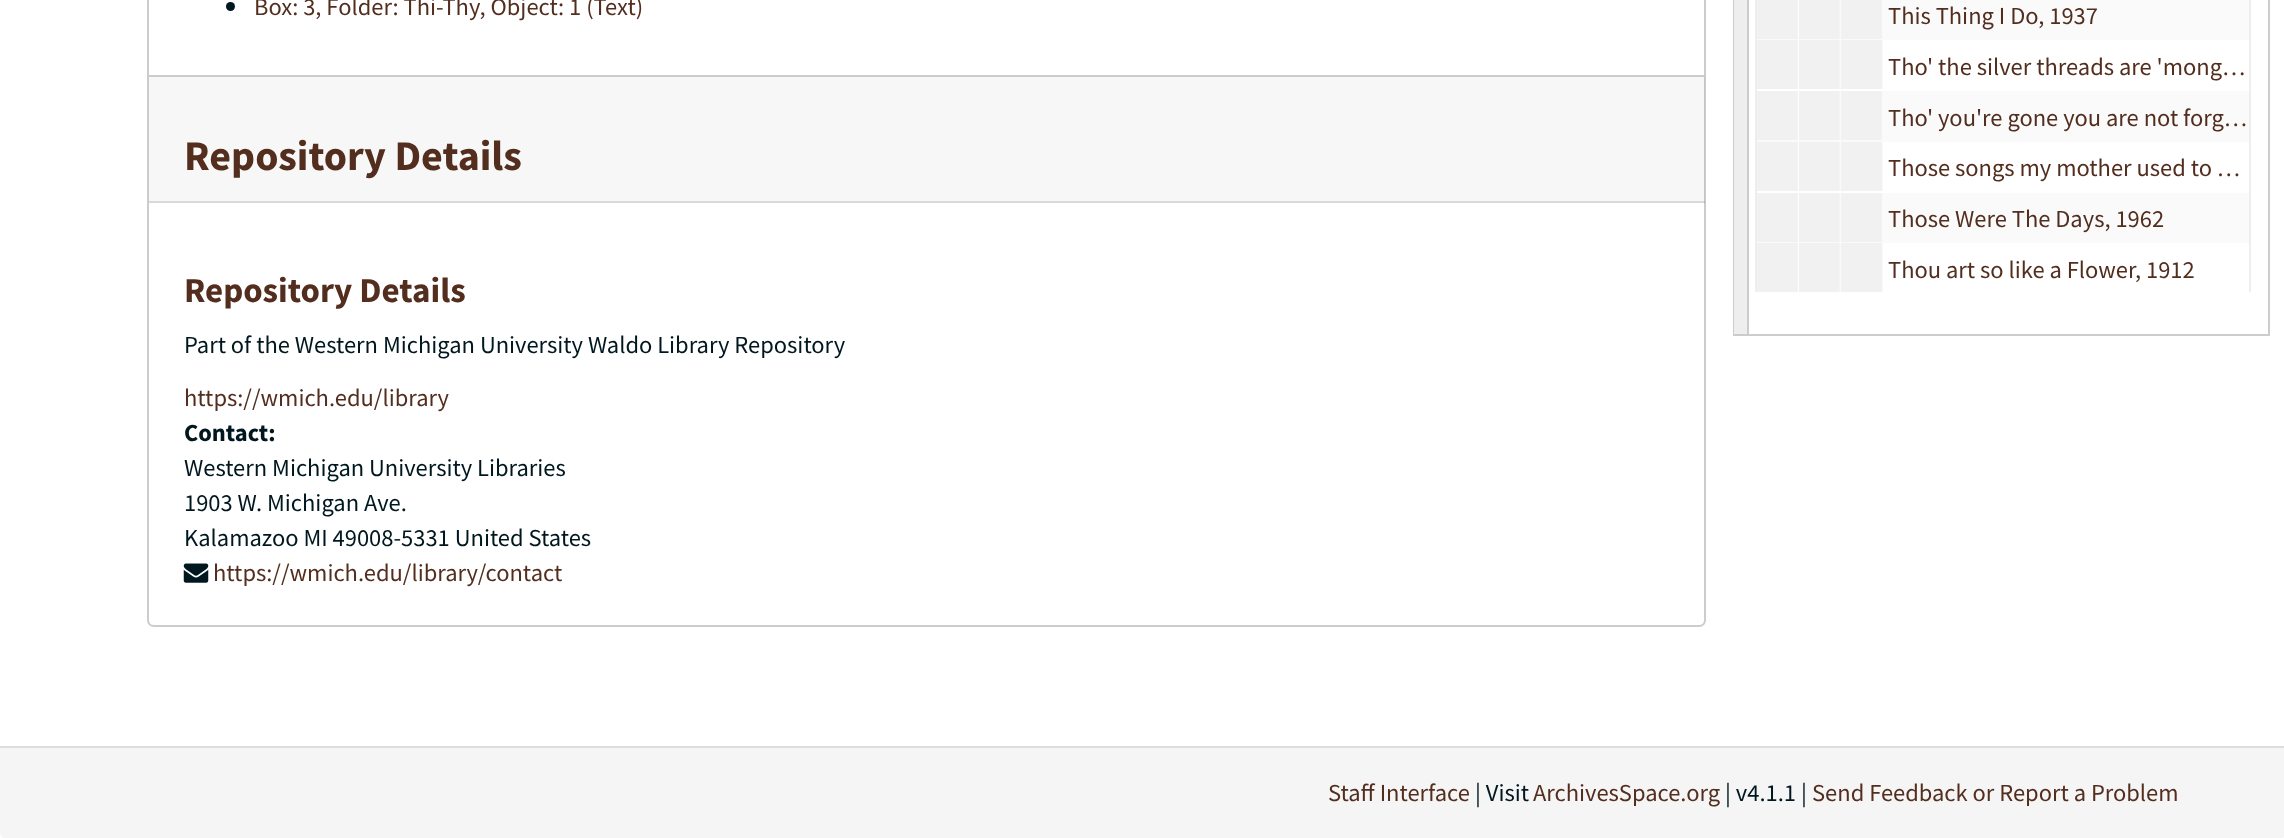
<svg xmlns="http://www.w3.org/2000/svg" width="2284" height="838">
	<defs>
		<linearGradient id="g1" gradientUnits="userSpaceOnUse" x1="1757" y1="14" x2="1883" y2="14"><stop offset="0" stop-color="#F1F1F1" /><stop offset="0.32" stop-color="#F1F1F1" /><stop offset="0.33" stop-color="#FFFFFF" /><stop offset="0.33" stop-color="#F1F1F1" /><stop offset="0.65" stop-color="#F1F1F1" /><stop offset="0.67" stop-color="#FFFFFF" /><stop offset="0.67" stop-color="#F1F1F1" /><stop offset="0.99" stop-color="#F1F1F1" /><stop offset="1" stop-color="#FFFFFF" /></linearGradient>
		<linearGradient id="g2" gradientUnits="userSpaceOnUse" x1="1757" y1="65" x2="1883" y2="65"><stop offset="0" stop-color="#F1F1F1" /><stop offset="0.32" stop-color="#F1F1F1" /><stop offset="0.33" stop-color="#FFFFFF" /><stop offset="0.33" stop-color="#F1F1F1" /><stop offset="0.65" stop-color="#F1F1F1" /><stop offset="0.67" stop-color="#FFFFFF" /><stop offset="0.67" stop-color="#F1F1F1" /><stop offset="0.99" stop-color="#F1F1F1" /><stop offset="1" stop-color="#FFFFFF" /></linearGradient>
		<linearGradient id="g3" gradientUnits="userSpaceOnUse" x1="1757" y1="116" x2="1883" y2="116"><stop offset="0" stop-color="#F1F1F1" /><stop offset="0.32" stop-color="#F1F1F1" /><stop offset="0.33" stop-color="#FFFFFF" /><stop offset="0.33" stop-color="#F1F1F1" /><stop offset="0.65" stop-color="#F1F1F1" /><stop offset="0.67" stop-color="#FFFFFF" /><stop offset="0.67" stop-color="#F1F1F1" /><stop offset="0.99" stop-color="#F1F1F1" /><stop offset="1" stop-color="#FFFFFF" /></linearGradient>
		<linearGradient id="g4" gradientUnits="userSpaceOnUse" x1="1757" y1="166" x2="1883" y2="166"><stop offset="0" stop-color="#F1F1F1" /><stop offset="0.32" stop-color="#F1F1F1" /><stop offset="0.33" stop-color="#FFFFFF" /><stop offset="0.33" stop-color="#F1F1F1" /><stop offset="0.65" stop-color="#F1F1F1" /><stop offset="0.67" stop-color="#FFFFFF" /><stop offset="0.67" stop-color="#F1F1F1" /><stop offset="0.99" stop-color="#F1F1F1" /><stop offset="1" stop-color="#FFFFFF" /></linearGradient>
		<linearGradient id="g5" gradientUnits="userSpaceOnUse" x1="1757" y1="217" x2="1883" y2="217"><stop offset="0" stop-color="#F1F1F1" /><stop offset="0.32" stop-color="#F1F1F1" /><stop offset="0.33" stop-color="#FFFFFF" /><stop offset="0.33" stop-color="#F1F1F1" /><stop offset="0.65" stop-color="#F1F1F1" /><stop offset="0.67" stop-color="#FFFFFF" /><stop offset="0.67" stop-color="#F1F1F1" /><stop offset="0.99" stop-color="#F1F1F1" /><stop offset="1" stop-color="#FFFFFF" /></linearGradient>
		<linearGradient id="g6" gradientUnits="userSpaceOnUse" x1="1757" y1="268" x2="1883" y2="268"><stop offset="0" stop-color="#F1F1F1" /><stop offset="0.32" stop-color="#F1F1F1" /><stop offset="0.33" stop-color="#FFFFFF" /><stop offset="0.33" stop-color="#F1F1F1" /><stop offset="0.65" stop-color="#F1F1F1" /><stop offset="0.67" stop-color="#FFFFFF" /><stop offset="0.67" stop-color="#F1F1F1" /><stop offset="0.99" stop-color="#F1F1F1" /><stop offset="1" stop-color="#FFFFFF" /></linearGradient>
	</defs>
	<rect width="100%" height="100%" fill="#FFFFFF" />
	<path d="M154-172H1699C1703-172 1706-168 1706-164V75H147V-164C147-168 150-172 154-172ZM154-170H1699C1702-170 1704-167 1704-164V75H149V-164C149-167 151-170 154-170Z" fill="#CCCCCC" fill-rule="evenodd" />
	<circle cx="230.5" cy="6.5" r="4.5" fill="#00171F" />
	<text x="254" y="15" font-family="Source Sans Pro" font-size="24.5" fill="#532E1F">Box: 3, Folder: Thi-Thy, Object: 1 (Text)</text>
	<path d="M148 76H1705V620C1705 623.5 1702.5 626 1699 626H154C150.5 626 148 623.5 148 620Z" fill="none" stroke="#CCCCCC" stroke-width="2" />
	<rect x="149" y="77" width="1556" height="126" fill="#000000" fill-opacity="0.03" />
	<rect x="149" y="201" width="1556" height="2" fill="#000000" fill-opacity="0.12" />
	<text x="184" y="170" font-family="Source Sans Pro" font-size="42" font-weight="700" fill="#532E1F">Repository Details</text>
	<text x="184" y="302" font-family="Source Sans Pro" font-size="35" font-weight="700" fill="#532E1F">Repository Details</text>
	<text x="184" y="353" font-family="Source Sans Pro" font-size="24.5" fill="#00171F">Part of the Western Michigan University Waldo Library Repository</text>
	<text x="184" y="406" font-family="Source Sans Pro" font-size="24.5" fill="#532E1F">https://wmich.edu/library</text>
	<text x="184" y="441" font-family="Source Sans Pro" font-size="24.5" font-weight="700" fill="#00171F">Contact:</text>
	<g font-family="Source Sans Pro" font-size="24.5" fill="#00171F">
		<text x="184" y="476">Western Michigan University Libraries</text>
		<text x="184" y="511">1903 W. Michigan Ave.</text>
		<text x="184" y="546">Kalamazoo MI 49008-5331 United States</text>
	</g>
	<image x="183" y="563" width="26" height="20" href="assets/img1.png" />
	<text x="213" y="581" font-family="Source Sans Pro" font-size="24.5" fill="#532E1F">https://wmich.edu/library/contact</text>
	<rect x="1734" y="-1" width="535" height="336" fill="none" stroke="#CCCCCC" stroke-width="2" />
	<rect x="1734" y="0" width="13" height="334" fill="#EEEEEE" />
	<rect x="1747" y="0" width="2" height="334" fill="#CCCCCC" />
	<rect x="1755" y="0" width="496" height="292" fill="#EEEEEE" />
	<rect x="1757" y="0" width="492" height="40" fill="#FAFAFA" />
	<rect x="1757" y="0" width="125" height="39" fill="url(#g1)" />
	<text x="1888" y="24" font-family="Source Sans Pro" font-size="24.5" fill="#532E1F">This Thing I Do, 1937</text>
	<rect x="1757" y="40" width="492" height="51" fill="#FFFFFF" />
	<rect x="1757" y="40" width="126" height="49" fill="url(#g2)" />
	<text x="1888" y="75" font-family="Source Sans Pro" font-size="24.5" fill="#532E1F">Tho' the silver threads are 'mong…</text>
	<rect x="1757" y="91" width="492" height="51" fill="#FAFAFA" />
	<rect x="1757" y="91" width="125" height="49" fill="url(#g3)" />
	<text x="1888" y="126" font-family="Source Sans Pro" font-size="24.5" fill="#532E1F">Tho' you're gone you are not forg…</text>
	<rect x="1757" y="142" width="492" height="51" fill="#FFFFFF" />
	<rect x="1757" y="142" width="126" height="49" fill="url(#g4)" />
	<text x="1888" y="176" font-family="Source Sans Pro" font-size="24.5" fill="#532E1F">Those songs my mother used to …</text>
	<rect x="1757" y="193" width="492" height="50" fill="#FAFAFA" />
	<rect x="1757" y="193" width="125" height="49" fill="url(#g5)" />
	<text x="1888" y="227" font-family="Source Sans Pro" font-size="24.5" fill="#532E1F">Those Were The Days, 1962</text>
	<rect x="1883" y="243" width="366" height="49" fill="#FFFFFF" />
	<rect x="1757" y="243" width="126" height="49" fill="url(#g6)" />
	<text x="1888" y="278" font-family="Source Sans Pro" font-size="24.5" fill="#532E1F">Thou art so like a Flower, 1912</text>
	<path d="M0 746H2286V833C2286 836 2284 838 2281 838H5C2 838 0 836 0 833Z" fill="#F5F5F5" />
	<rect x="0" y="746" width="2284" height="2" fill="#DDDDDD" />
	<text x="1328" y="801" font-family="Source Sans Pro" font-size="24.5" fill="#532E1F">Staff Interface</text>
	<text x="1475" y="801" font-family="Source Sans Pro" font-size="24.5" fill="#00171F">| Visit</text>
	<text x="1533" y="801" font-family="Source Sans Pro" font-size="24.5" fill="#532E1F">ArchivesSpace.org</text>
	<text x="1725" y="801" font-family="Source Sans Pro" font-size="24.5" fill="#00171F">| v4.1.1 |</text>
	<text x="1812" y="801" font-family="Source Sans Pro" font-size="24.5" fill="#532E1F">Send Feedback or Report a Problem</text>
</svg>
